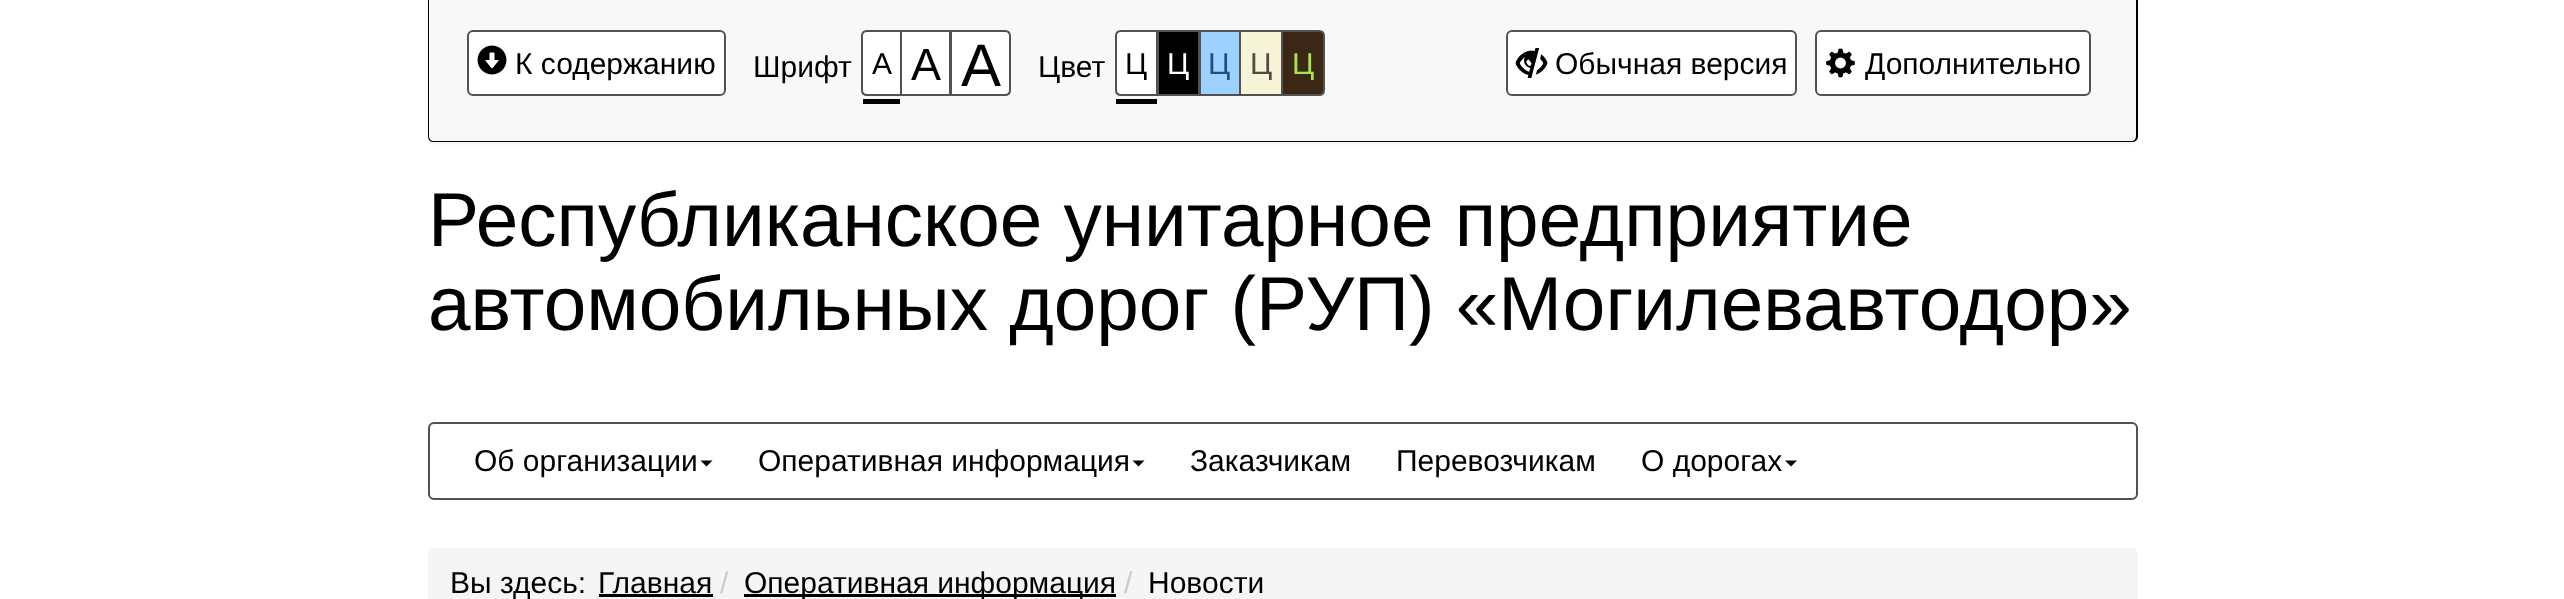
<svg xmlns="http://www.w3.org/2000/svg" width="2564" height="599">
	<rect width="100%" height="100%" fill="#FFFFFF" />
	<rect x="428" y="2" width="1710" height="142" rx="6" fill="#000000" fill-opacity="0.05" filter="blur(1px)" />
	<path d="M428 0H2138V137C2138 140.5 2135.5 143 2132 143H434C430.5 143 428 140.5 428 137Z" fill="#F8F8F8" />
	<path d="M428 0H2138V136C2138 140 2135 142 2132 142H434C430 142 428 140 428 136ZM429 0H2136V136C2136 139 2134 141 2132 141H434C431 141 429 139 429 136Z" fill="#000000" fill-rule="evenodd" />
	<rect x="468" y="31" width="257" height="64" rx="5" fill="#FFFFFF" stroke="#525252" stroke-width="2" />
	<image x="477" y="45" width="30" height="30" href="assets/img1.png" />
	<g font-family="Liberation Sans" font-size="30" fill="#000000">
		<text x="515" y="74">К содержанию</text>
		<text x="753" y="77">Шрифт</text>
	</g>
	<path d="M867 31H901V95H867C864 95 862 93 862 90V36C862 33 864 31 867 31Z" fill="#FFFFFF" stroke="#525252" stroke-width="2" />
	<text x="872" y="74" font-family="Liberation Sans" font-size="30" fill="#000000">А</text>
	<rect x="863" y="99" width="37" height="5" fill="#000000" />
	<rect x="901" y="31" width="49" height="64" fill="#FFFFFF" stroke="#525252" stroke-width="2" />
	<text x="911" y="80" font-family="Liberation Sans" font-size="45" fill="#000000">А</text>
	<path d="M951 31H1005C1008 31 1010 33 1010 36V90C1010 93 1008 95 1005 95H951Z" fill="#FFFFFF" stroke="#525252" stroke-width="2" />
	<text x="961" y="86" font-family="Liberation Sans" font-size="60" fill="#000000">А</text>
	<text x="1038" y="77" font-family="Liberation Sans" font-size="30" fill="#000000">Цвет</text>
	<path d="M1121 31H1157V95H1121C1118 95 1116 93 1116 90V36C1116 33 1118 31 1121 31Z" fill="#FFFFFF" stroke="#525252" stroke-width="2" />
	<text x="1125" y="74" font-family="Liberation Sans" font-size="30" fill="#000000">Ц</text>
	<rect x="1116" y="99" width="41" height="5" fill="#000000" />
	<rect x="1158" y="31" width="41" height="64" fill="#000000" stroke="#525252" stroke-width="2" />
	<text x="1167" y="74" font-family="Liberation Sans" font-size="30" fill="#FFFFFF">Ц</text>
	<rect x="1200" y="31" width="40" height="64" fill="#9DD1FF" stroke="#525252" stroke-width="2" />
	<text x="1208" y="74" font-family="Liberation Sans" font-size="30" fill="#195183">Ц</text>
	<rect x="1240" y="31" width="42" height="64" fill="#F7F3D6" stroke="#525252" stroke-width="2" />
	<text x="1250" y="74" font-family="Liberation Sans" font-size="30" fill="#4D4B43">Ц</text>
	<path d="M1282 31H1319C1322 31 1324 33 1324 36V90C1324 93 1322 95 1319 95H1282Z" fill="#3B2716" stroke="#525252" stroke-width="2" />
	<text x="1292" y="74" font-family="Liberation Sans" font-size="30" fill="#A9E44D">Ц</text>
	<rect x="1507" y="31" width="289" height="64" rx="5" fill="#FFFFFF" stroke="#525252" stroke-width="2" />
	<image x="1515" y="48" width="33" height="30" href="assets/img2.png" />
	<text x="1555" y="74" font-family="Liberation Sans" font-size="30" fill="#000000">Обычная версия</text>
	<rect x="1816" y="31" width="274" height="64" rx="5" fill="#FFFFFF" stroke="#525252" stroke-width="2" />
	<image x="1826" y="48" width="29" height="30" href="assets/img3.png" />
	<text x="1865" y="74" font-family="Liberation Sans" font-size="30" fill="#000000">Дополнительно</text>
	<g font-family="Liberation Sans" font-size="76.5" fill="#000000">
		<text x="428" y="246">Республиканское унитарное предприятие</text>
		<text x="428" y="330">автомобильных дорог (РУП) «Могилевавтодор»</text>
	</g>
	<rect x="429" y="423" width="1708" height="76" rx="5" fill="none" stroke="#525252" stroke-width="2" />
	<text x="474" y="471" font-family="Liberation Sans" font-size="30" fill="#000000">Об организации</text>
	<path d="M700.5 460.5H712.5L706.5 466.5Z" fill="#000000" />
	<text x="758" y="471" font-family="Liberation Sans" font-size="30" fill="#000000">Оперативная информация</text>
	<path d="M1132.5 460.5H1144.5L1138.5 466.5Z" fill="#000000" />
	<g font-family="Liberation Sans" font-size="30" fill="#000000">
		<text x="1190" y="471">Заказчикам</text>
		<text x="1396" y="471">Перевозчикам</text>
		<text x="1641" y="471">О дорогах</text>
	</g>
	<path d="M1785 460.5H1797L1791 466.5Z" fill="#000000" />
	<rect x="428" y="548" width="1710" height="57" rx="6" fill="#F5F5F5" />
	<g font-family="Liberation Sans" font-size="30" fill="#000000">
		<text x="450" y="593">Вы здесь:</text>
		<text x="598" y="593">Главная</text>
	</g>
	<rect x="599" y="594" width="114" height="3" fill="#000000" />
	<text x="720" y="593" font-family="Liberation Sans" font-size="30" fill="#CCCCCC">/</text>
	<rect x="744" y="594" width="372" height="3" fill="#000000" />
	<text x="744" y="593" font-family="Liberation Sans" font-size="30" fill="#000000">Оперативная информация</text>
	<text x="1124" y="593" font-family="Liberation Sans" font-size="30" fill="#CCCCCC">/</text>
	<text x="1148" y="593" font-family="Liberation Sans" font-size="30" fill="#000000">Новости</text>
</svg>
